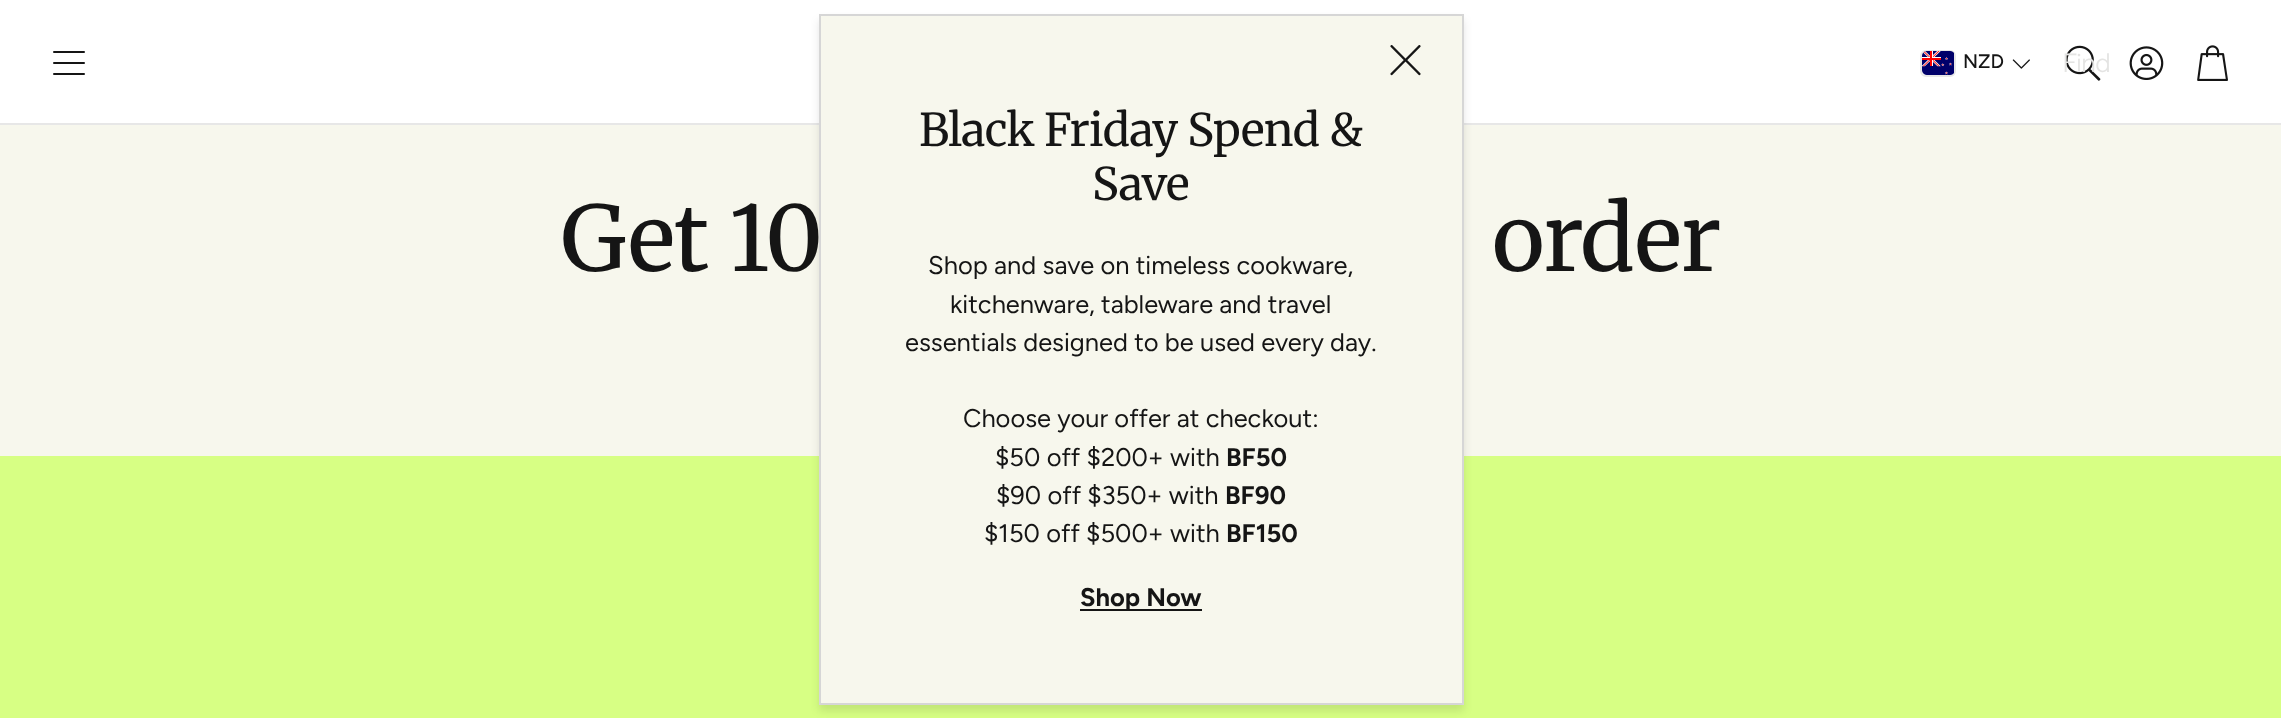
<svg xmlns="http://www.w3.org/2000/svg" width="2281" height="718">
	<rect width="100%" height="100%" fill="#FFFFFF" />
	<rect x="0" y="123" width="2281" height="2" fill="#E7E7E7" />
	<rect x="53" y="51" width="32" height="2" rx="1" fill="#151515" />
	<rect x="53" y="62" width="32" height="2" rx="1" fill="#151515" />
	<rect x="53" y="73" width="32" height="2" rx="1" fill="#151515" />
	<rect x="1921" y="51" width="34" height="25" rx="5" fill="none" stroke="#E7E7E7" stroke-width="2" />
	<image x="1922" y="51" width="32" height="24" href="assets/img1.png" />
	<text x="1963" y="68" font-family="Figtree" font-size="19.5" font-weight="500" fill="#151515">NZD</text>
	<image x="2012" y="59" width="18" height="10" href="assets/img2.png" />
	<image x="2065" y="45" width="36" height="36" href="assets/img3.png" />
	<text x="2063" y="72" font-family="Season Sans" font-size="25.5" fill="#E4E4E3">Find</text>
	<image x="2129" y="46" width="35" height="34" href="assets/img4.png" />
	<image x="2197" y="45" width="31" height="36" href="assets/img5.png" />
	<rect x="0" y="125" width="2281" height="331" fill="#F7F7ED" />
	<rect x="0" y="456" width="2281" height="262" fill="#D7FF84" />
	<rect x="819" y="20" width="645" height="691" fill="#000000" fill-opacity="0.1" filter="blur(4.5px)" />
	<rect x="820" y="15" width="643" height="689" fill="#F7F7ED" stroke="#D6D6D6" stroke-width="2" />
	<image x="1390" y="45" width="31" height="31" href="assets/img6.png" />
	<g font-family="Merriweather" font-size="45" letter-spacing="-0.75" fill="#151515">
		<text x="919" y="146">Black Friday Spend &amp;</text>
		<text x="1092" y="200">Save</text>
	</g>
	<g font-family="Figtree" font-size="25.5" fill="#151515">
		<text x="928" y="274">Shop and save on timeless cookware,</text>
		<text x="950" y="313">kitchenware, tableware and travel</text>
		<text x="905" y="351">essentials designed to be used every day.</text>
		<text x="963" y="427">Choose your offer at checkout:</text>
		<text x="995" y="466">$50 off $200+ with</text>
	</g>
	<text x="1226" y="466" font-family="Figtree" font-size="25.5" font-weight="700" fill="#151515">BF50</text>
	<text x="996" y="504" font-family="Figtree" font-size="25.5" fill="#151515">$90 off $350+ with</text>
	<text x="1225" y="504" font-family="Figtree" font-size="25.5" font-weight="700" fill="#151515">BF90</text>
	<text x="984" y="542" font-family="Figtree" font-size="25.5" fill="#151515">$150 off $500+ with</text>
	<text x="1226" y="542" font-family="Figtree" font-size="25.5" font-weight="700" fill="#151515">BF150</text>
	<rect x="1080" y="609" width="122" height="2" fill="#151515" />
	<text x="1080" y="606" font-family="Figtree" font-size="25.5" font-weight="700" fill="#151515">Shop Now</text>
	<g font-family="Merriweather" font-size="90" letter-spacing="-0.75" fill="#151515">
		<text x="561" y="271">Get 10</text>
		<text x="1492" y="271">order</text>
	</g>
</svg>
